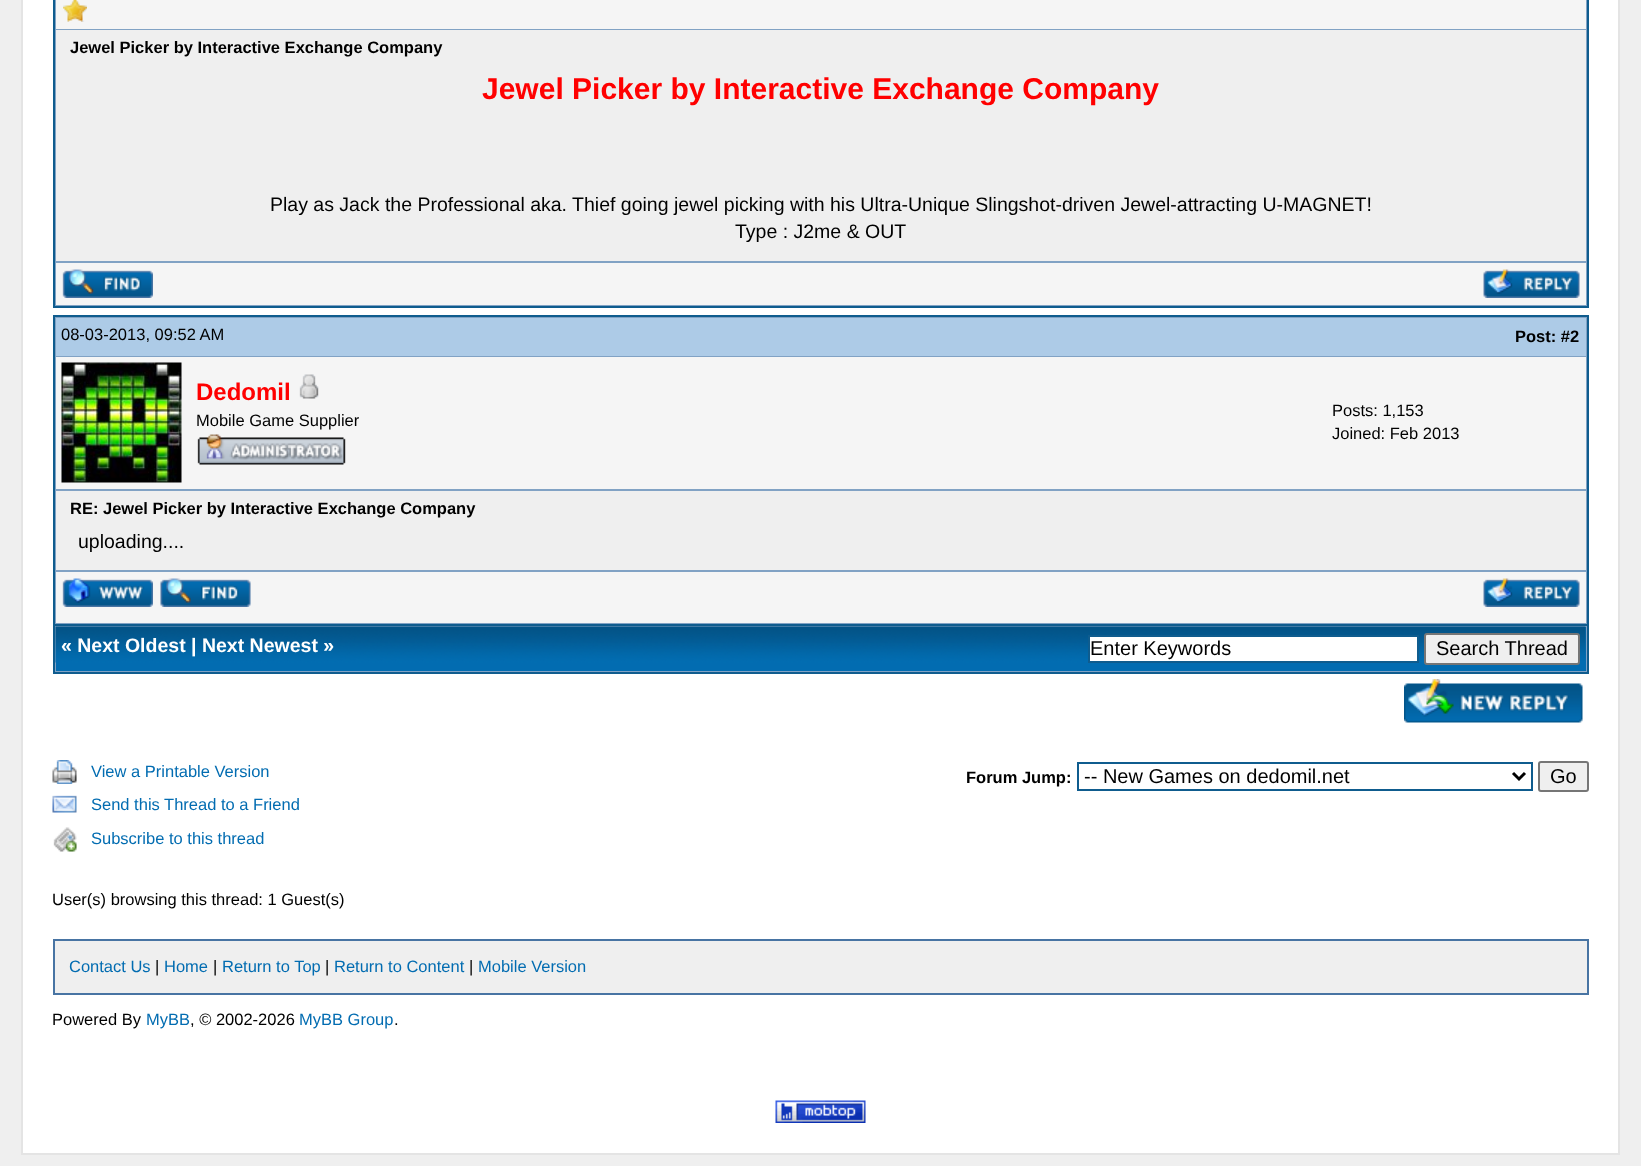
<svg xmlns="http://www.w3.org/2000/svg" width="1641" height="1166">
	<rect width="100%" height="100%" fill="#EFEFEF" />
	<rect x="22" y="-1" width="1597" height="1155" fill="#FFFFFF" stroke="#E4E4E4" stroke-width="2" />
	<rect x="55" y="0" width="1532" height="306" fill="#81A2C4" />
	<rect x="1587" y="0" width="2" height="308" fill="#0F5C8E" />
	<rect x="53" y="306" width="1536" height="2" fill="#0F5C8E" />
	<rect x="53" y="0" width="2" height="308" fill="#0F5C8E" />
	<rect x="56" y="0" width="1530" height="29" fill="#F5F5F5" />
	<image x="63" y="0" width="24" height="22" href="assets/img1.png" />
	<rect x="56" y="30" width="1530" height="231" fill="#EFEFEF" />
	<text x="70" y="53" font-family="Liberation Sans" font-size="16.5" font-weight="700" fill="#000000">Jewel Picker by Interactive Exchange Company</text>
	<text x="482" y="99" font-family="Liberation Sans" font-size="30" font-weight="700" fill="#FF0000">Jewel Picker by Interactive Exchange Company</text>
	<g font-family="Liberation Sans" font-size="19.5" fill="#000000">
		<text x="270" y="211">Play as Jack the Professional aka. Thief going jewel picking with his Ultra-Unique Slingshot-driven Jewel-attracting U-MAGNET!</text>
		<text x="735" y="238">Type : J2me &amp; OUT</text>
	</g>
	<rect x="56" y="263" width="1530" height="42" fill="#F5F5F5" />
	<image x="62" y="269" width="91" height="29" href="assets/img2.png" />
	<image x="1483" y="269" width="97" height="29" href="assets/img3.png" />
	<rect x="54" y="316" width="1534" height="309" fill="#81A2C4" stroke="#0F5C8E" stroke-width="2" />
	<rect x="56" y="318" width="1530" height="38" fill="#ADCBE7" />
	<text x="61" y="340" font-family="Liberation Sans" font-size="16.5" fill="#000000">08-03-2013, 09:52 AM</text>
	<text x="1515" y="342" font-family="Liberation Sans" font-size="16.5" font-weight="700" fill="#000000">Post: #2</text>
	<rect x="56" y="357" width="1530" height="132" fill="#F5F5F5" />
	<image x="61" y="362" width="121" height="121" href="assets/img4.png" />
	<text x="196" y="400" font-family="Liberation Sans" font-size="24" font-weight="700" fill="#FF0000">Dedomil</text>
	<image x="299" y="374" width="20" height="25" href="assets/img5.png" />
	<text x="196" y="426" font-family="Liberation Sans" font-size="16.5" fill="#000000">Mobile Game Supplier</text>
	<image x="197" y="434" width="149" height="31" href="assets/img6.png" />
	<g font-family="Liberation Sans" font-size="16.5" fill="#000000">
		<text x="1332" y="416">Posts: 1,153</text>
		<text x="1332" y="439">Joined: Feb 2013</text>
	</g>
	<rect x="56" y="491" width="1530" height="79" fill="#EFEFEF" />
	<text x="70" y="514" font-family="Liberation Sans" font-size="16.5" font-weight="700" fill="#000000">RE: Jewel Picker by Interactive Exchange Company</text>
	<text x="78" y="548" font-family="Liberation Sans" font-size="19.5" fill="#000000">uploading....</text>
	<rect x="56" y="572" width="1530" height="51" fill="#F5F5F5" />
	<image x="62" y="578" width="91" height="29" href="assets/img7.png" />
	<image x="160" y="578" width="91" height="29" href="assets/img8.png" />
	<image x="1483" y="578" width="97" height="29" href="assets/img3.png" />
	<rect x="55" y="626" width="1532" height="46" fill="#81A2C4" />
	<rect x="1587" y="626" width="2" height="48" fill="#0F5C8E" />
	<rect x="53" y="672" width="1536" height="2" fill="#0F5C8E" />
	<rect x="53" y="626" width="2" height="48" fill="#0F5C8E" />
	<rect x="56" y="627" width="1530" height="44" fill="#026CB1" />
	<image x="55" y="626" width="1531" height="37" href="assets/img9.png" />
	<text x="61" y="652" font-family="Liberation Sans" font-size="19.5" font-weight="700" fill="#FFFFFF">« Next Oldest | Next Newest »</text>
	<rect x="1089" y="636" width="329" height="26" fill="#FFFFFF" stroke="#0F5C8E" stroke-width="2" />
	<text x="1090" y="655" font-family="Liberation Sans" font-size="20" fill="#000000">Enter Keywords</text>
	<rect x="1425" y="634" width="154" height="30" rx="2" fill="#EFEFEF" stroke="#767676" stroke-width="2" />
	<text x="1436" y="655" font-family="Liberation Sans" font-size="20" fill="#000000">Search Thread</text>
	<image x="1404" y="679" width="179" height="44" href="assets/img10.png" />
	<image x="52" y="760" width="25" height="24" href="assets/img11.png" />
	<text x="91" y="777" font-family="Liberation Sans" font-size="16.5" fill="#026CB1">View a Printable Version</text>
	<image x="52" y="795" width="25" height="18" href="assets/img12.png" />
	<text x="91" y="810" font-family="Liberation Sans" font-size="16.5" fill="#026CB1">Send this Thread to a Friend</text>
	<image x="53" y="827" width="24" height="25" href="assets/img13.png" />
	<text x="91" y="844" font-family="Liberation Sans" font-size="16.5" fill="#026CB1">Subscribe to this thread</text>
	<text x="966" y="783" font-family="Liberation Sans" font-size="16.5" font-weight="700" fill="#000000">Forum Jump:</text>
	<rect x="1078" y="763" width="454" height="27" fill="none" stroke="#0F5C8E" stroke-width="2" />
	<path d="M1513 773L1519 779L1525 773" fill="none" stroke="#000000" stroke-width="3" />
	<text x="1084" y="783" font-family="Liberation Sans" font-size="20" fill="#000000">-- New Games on dedomil.net</text>
	<rect x="1539" y="762" width="49" height="29" rx="2" fill="#EFEFEF" stroke="#767676" stroke-width="2" />
	<text x="1550" y="783" font-family="Liberation Sans" font-size="20" fill="#000000">Go</text>
	<text x="52" y="905" font-family="Liberation Sans" font-size="16.5" fill="#000000">User(s) browsing this thread: 1 Guest(s)</text>
	<rect x="54" y="940" width="1534" height="54" fill="#EFEFEF" stroke="#4874A3" stroke-width="2" />
	<text x="69" y="972" font-family="Liberation Sans" font-size="16.5" fill="#026CB1">Contact Us</text>
	<text x="155" y="972" font-family="Liberation Sans" font-size="16.5" fill="#000000">|</text>
	<text x="164" y="972" font-family="Liberation Sans" font-size="16.5" fill="#026CB1">Home</text>
	<text x="213" y="972" font-family="Liberation Sans" font-size="16.5" fill="#000000">|</text>
	<text x="222" y="972" font-family="Liberation Sans" font-size="16.5" fill="#026CB1">Return to Top</text>
	<text x="325" y="972" font-family="Liberation Sans" font-size="16.5" fill="#000000">|</text>
	<text x="334" y="972" font-family="Liberation Sans" font-size="16.5" fill="#026CB1">Return to Content</text>
	<text x="469" y="972" font-family="Liberation Sans" font-size="16.5" fill="#000000">|</text>
	<text x="478" y="972" font-family="Liberation Sans" font-size="16.5" fill="#026CB1">Mobile Version</text>
	<text x="52" y="1025" font-family="Liberation Sans" font-size="16.5" fill="#000000">Powered By</text>
	<text x="146" y="1025" font-family="Liberation Sans" font-size="16.5" fill="#026CB1">MyBB</text>
	<text x="190" y="1025" font-family="Liberation Sans" font-size="16.5" fill="#000000">, © 2002-2026</text>
	<text x="299" y="1025" font-family="Liberation Sans" font-size="16.5" fill="#026CB1">MyBB Group</text>
	<text x="394" y="1025" font-family="Liberation Sans" font-size="16.5" fill="#000000">.</text>
	<image x="775" y="1100" width="91" height="23" href="assets/img14.png" />
</svg>
